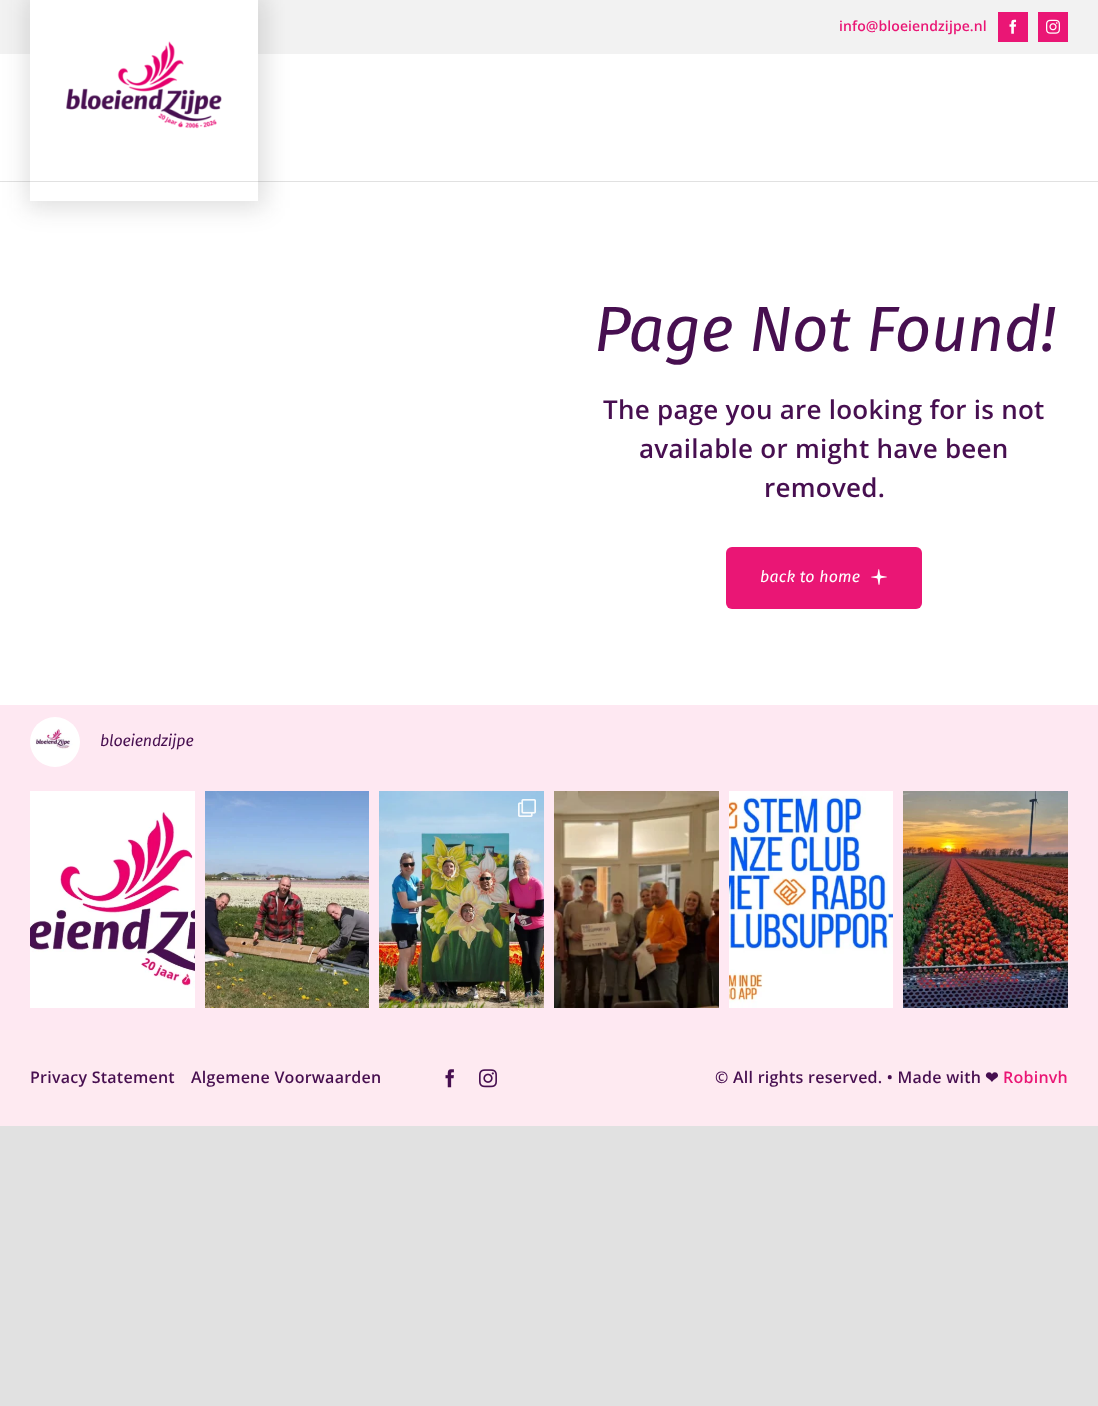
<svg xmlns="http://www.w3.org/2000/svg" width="1098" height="1406">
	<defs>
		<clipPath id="clip1"><path d="M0 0H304V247H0ZM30-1H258V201H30Z" clip-rule="evenodd" /></clipPath>
	</defs>
	<rect width="100%" height="100%" fill="#E1E1E1" />
	<rect x="0" y="54" width="1098" height="651" fill="#FFFFFF" />
	<rect x="0" y="0" width="1098" height="54" fill="#F2F2F2" />
	<rect x="0" y="181" width="1098" height="1" fill="#E1E1E1" />
	<g clip-path="url(#clip1)">
		<rect x="27" y="-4" width="238" height="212" fill="#212121" fill-opacity="0.15" filter="blur(12.5px)" />
	</g>
	<rect x="30" y="0" width="228" height="54" fill="#FFFFFF" />
	<image x="66" y="41" width="156" height="88" href="assets/img1.png" />
	<text x="839" y="31" font-family="Open Sans" font-size="14" font-weight="600" letter-spacing="0.1" fill="#EA1675">info@bloeiendzijpe.nl</text>
	<rect x="998" y="12" width="30" height="30" fill="#EA1675" />
	<image x="1009" y="19" width="8" height="15" href="assets/img2.png" />
	<rect x="1038" y="12" width="30" height="30" fill="#EA1675" />
	<image x="1046" y="19" width="14" height="15" href="assets/img3.png" />
	<text x="594" y="351" font-family="Fira Sans" font-size="64" font-style="italic" letter-spacing="-0.6" fill="#470F50">Page Not Found!</text>
	<g font-family="Open Sans" font-size="26" font-weight="600" letter-spacing="0.25" fill="#470F50">
		<text x="603" y="419">The page you are looking for is not</text>
		<text x="639" y="458">available or might have been</text>
		<text x="764" y="497">removed.</text>
	</g>
	<rect x="726" y="547" width="196" height="62" rx="6" fill="#EA1675" />
	<text x="760" y="582" font-family="Fira Sans" font-size="16" font-style="italic" letter-spacing="0.2" fill="#FFFFFF">back to home</text>
	<image x="871" y="569" width="16" height="16" href="assets/img4.png" />
	<rect x="0" y="705" width="1098" height="325" fill="#FEE8F2" />
	<image x="30" y="717" width="50" height="50" href="assets/img5.png" />
	<text x="100" y="746" font-family="Fira Sans" font-size="16" font-style="italic" letter-spacing="-0.2" fill="#470F50">bloeiendzijpe</text>
	<image x="30" y="791" width="165" height="217" href="assets/img6.png" />
	<image x="205" y="791" width="164" height="217" href="assets/img7.png" />
	<image x="379" y="791" width="165" height="217" href="assets/img8.png" />
	<image x="518" y="799" width="18" height="18" href="assets/img9.png" />
	<image x="554" y="791" width="165" height="217" href="assets/img10.png" />
	<image x="729" y="791" width="164" height="217" href="assets/img11.png" />
	<image x="903" y="791" width="165" height="217" href="assets/img12.png" />
	<rect x="0" y="1030" width="1098" height="96" fill="#FEEAF1" />
	<g font-family="Open Sans" font-size="16" font-weight="600" letter-spacing="0.25" fill="#470F50">
		<text x="30" y="1083">Privacy Statement</text>
		<text x="191" y="1083">Algemene Voorwaarden</text>
	</g>
	<image x="445" y="1069" width="9" height="19" href="assets/img13.png" />
	<image x="479" y="1069" width="18" height="19" href="assets/img14.png" />
	<text x="715" y="1083" font-family="Open Sans" font-size="16" font-weight="600" letter-spacing="0.25" fill="#470F50">© All rights reserved. • Made with</text>
	<text x="985" y="1083" font-family="DejaVu Sans" font-size="16" font-weight="700" letter-spacing="0.25" fill="#470F50">❤</text>
	<text x="1003" y="1083" font-family="Open Sans" font-size="16" font-weight="600" letter-spacing="0.25" fill="#EA1675">Robinvh</text>
</svg>
